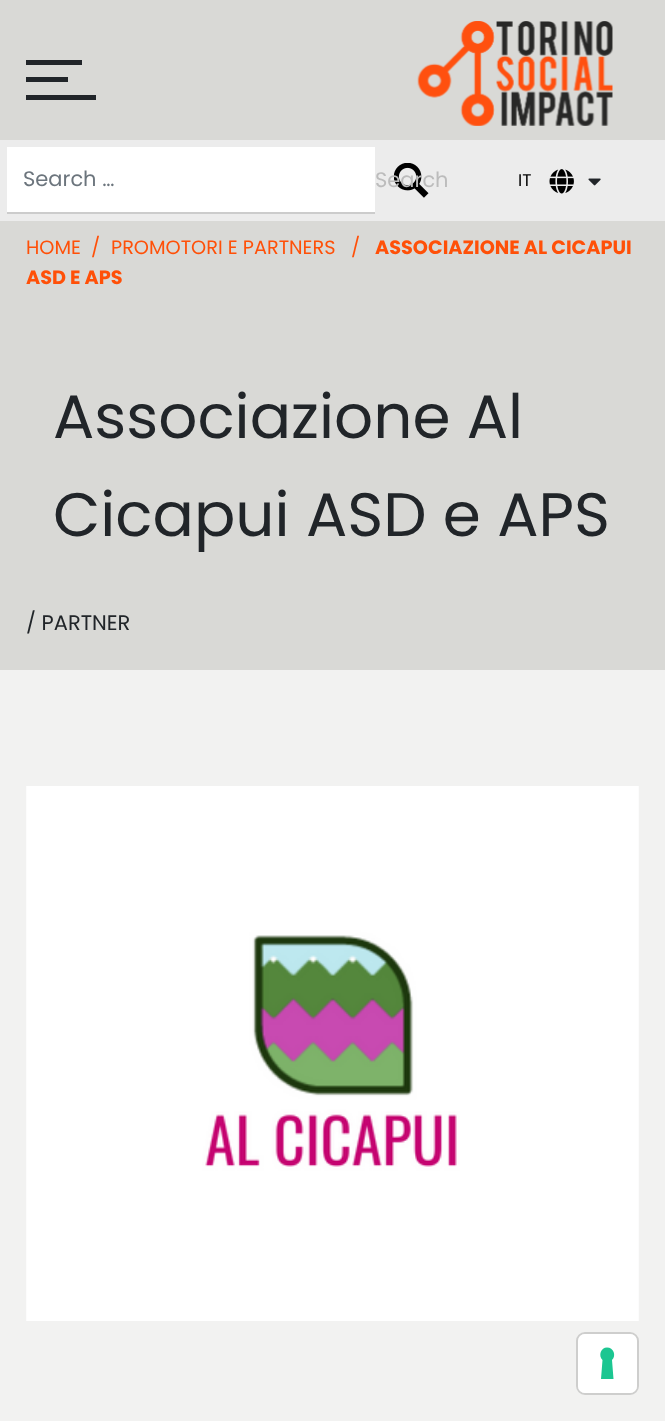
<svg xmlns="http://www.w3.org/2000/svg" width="665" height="1421">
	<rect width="100%" height="100%" fill="#F2F2F1" />
	<rect x="0" y="0" width="665" height="670" fill="#D9D9D6" />
	<rect x="26" y="60" width="56" height="5" fill="#212529" />
	<rect x="26" y="77" width="42" height="5" fill="#212529" />
	<rect x="26" y="95" width="70" height="5" fill="#212529" />
	<image x="417" y="21" width="196" height="105" href="assets/img1.png" />
	<rect x="0" y="140" width="665" height="81" fill="#ECECEC" />
	<rect x="7" y="147" width="368" height="65" fill="#FFFFFF" />
	<rect x="7" y="212" width="368" height="2" fill="#CCCCCC" />
	<text x="23" y="186" font-family="Poppins" font-size="21" fill="#6C757D">Search …</text>
	<image x="394" y="163" width="35" height="35" href="assets/img2.png" />
	<text x="375" y="187" font-family="Poppins" font-size="21" fill="#BCBCBC">Search</text>
	<text x="518" y="186" font-family="Poppins" font-size="17" fill="#000000">IT</text>
	<image x="549" y="169" width="25" height="25" href="assets/img3.png" />
	<image x="588" y="178" width="13" height="8" href="assets/img4.png" />
	<g font-family="Poppins" font-size="19.25" fill="#FF5008">
		<text x="26" y="254">HOME</text>
		<text x="91" y="254">/</text>
		<text x="111" y="254">PROMOTORI E PARTNERS</text>
		<text x="351" y="254">/</text>
	</g>
	<g font-family="Poppins" font-size="19.25" font-weight="700" fill="#FF5008">
		<text x="375" y="254">ASSOCIAZIONE AL CICAPUI</text>
		<text x="26" y="284">ASD E APS</text>
	</g>
	<g font-family="Poppins" font-size="61.25" fill="#212529">
		<text x="53" y="438">Associazione Al</text>
		<text x="53" y="536">Cicapui ASD e APS</text>
	</g>
	<text x="26" y="630" font-family="Poppins" font-size="21" fill="#212529">/ PARTNER</text>
	<image x="26" y="786" width="613" height="535" href="assets/img5.png" />
	<rect x="577" y="1333" width="61" height="61" rx="8" fill="none" stroke="#CECECD" stroke-width="2" />
	<rect x="578" y="1334" width="59" height="59" rx="7" fill="#FFFFFF" />
	<path d="M607 1347.5C613.5 1347.5 616.5 1355.5 612 1360L613.5 1379H601L602.5 1360C598 1355.5 601 1347.5 607 1347.5Z" fill="#1CC691" fill-rule="evenodd" />
</svg>
